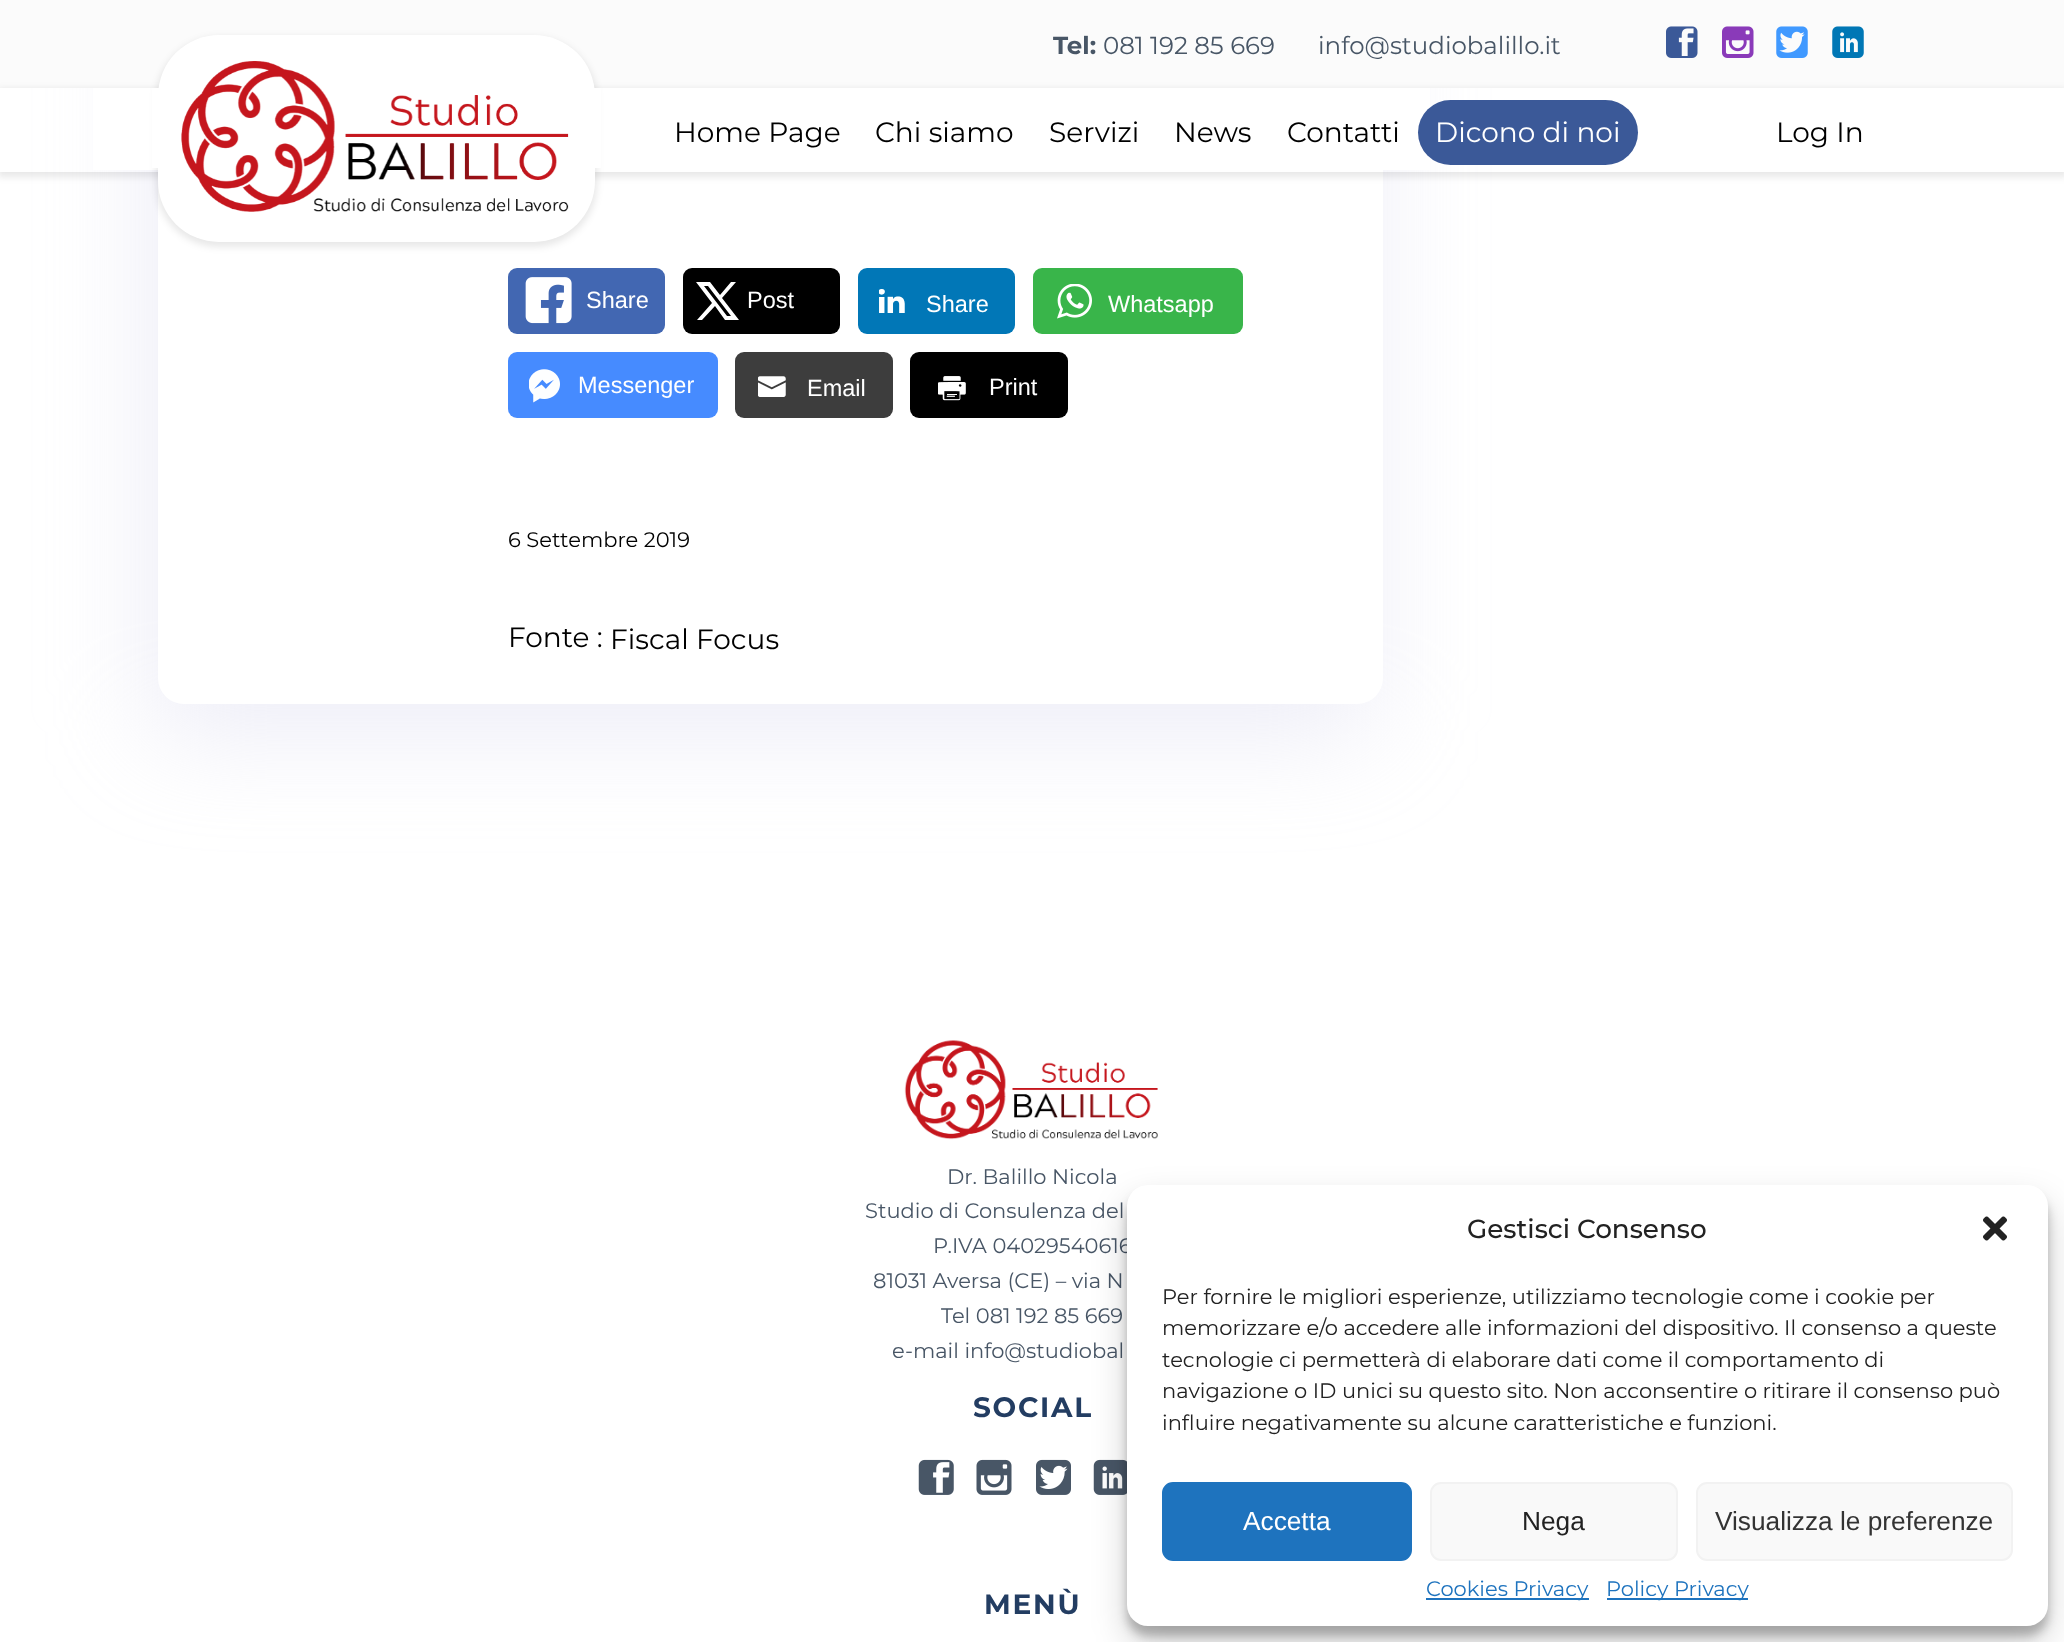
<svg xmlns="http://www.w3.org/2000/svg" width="2064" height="1642">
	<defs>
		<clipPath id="clip1"><path d="M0 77H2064V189H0ZM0 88H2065V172H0Z" clip-rule="evenodd" /></clipPath>
	</defs>
	<rect width="100%" height="100%" fill="#FFFFFF" />
	<rect x="149" y="-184" width="1225" height="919" rx="26" fill="#D2D2EA" fill-opacity="0.4" filter="blur(52.5px)" />
	<rect x="158" y="-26" width="1225" height="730" rx="26" fill="#FFFFFF" />
	<rect x="93" y="88" width="1337" height="82" fill="#FFFFFF" />
	<rect x="0" y="0" width="2064" height="88" fill="#FBFBFB" />
	<text x="1053" y="54" font-family="Montserrat" font-size="24.5" font-weight="700" fill="#485666">Tel:</text>
	<g font-family="Montserrat" font-size="24.5" fill="#485666">
		<text x="1103" y="54">081 192 85 669</text>
		<text x="1318" y="54">info@studiobalillo.it</text>
	</g>
	<image x="1666" y="26" width="32" height="32" href="assets/img1.png" />
	<image x="1722" y="26" width="32" height="32" href="assets/img2.png" />
	<image x="1776" y="26" width="32" height="32" href="assets/img3.png" />
	<image x="1832" y="26" width="32" height="32" href="assets/img4.png" />
	<g clip-path="url(#clip1)">
		<rect x="-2" y="89" width="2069" height="88" fill="#000000" fill-opacity="0.09" filter="blur(3.5px)" />
	</g>
	<rect x="156" y="37" width="441" height="210" rx="63" fill="#000000" fill-opacity="0.09" filter="blur(3.5px)" />
	<rect x="158" y="35" width="437" height="207" rx="61" fill="#FFFFFF" />
	<rect x="152" y="88" width="449" height="80" fill="#FFFFFF" />
	<image x="181" y="61" width="388" height="151" href="assets/img5.png" />
	<g font-family="Montserrat" font-size="28" fill="#000000">
		<text x="674" y="142">Home Page</text>
		<text x="875" y="142">Chi siamo</text>
		<text x="1049" y="142">Servizi</text>
		<text x="1174" y="142">News</text>
		<text x="1287" y="142">Contatti</text>
	</g>
	<rect x="1418" y="100" width="220" height="65" rx="32.5" fill="#3B5998" />
	<text x="1435" y="142" font-family="Montserrat" font-size="28" fill="#FFFFFF">Dicono di noi</text>
	<text x="1776" y="142" font-family="Montserrat" font-size="28" fill="#000000">Log In</text>
	<rect x="508" y="268" width="157" height="66" rx="9" fill="#4267B2" />
	<image x="525" y="277" width="47" height="47" href="assets/img6.png" />
	<text x="586" y="308" font-family="Liberation Sans" font-size="23.5" fill="#FFFFFF">Share</text>
	<rect x="683" y="268" width="157" height="66" rx="9" fill="#000000" />
	<path d="M710 282H696L712 303L697 320H702L715 306L725 320H739L722 298L736 282H731L720 295ZM727 316L704 286H708L731 316Z" fill="#FFFFFF" />
	<text x="747" y="308" font-family="Liberation Sans" font-size="23.5" fill="#FFFFFF">Post</text>
	<rect x="858" y="268" width="157" height="66" rx="9" fill="#0177B7" />
	<image x="879" y="289" width="26" height="24" href="assets/img7.png" />
	<text x="926" y="312" font-family="Liberation Sans" font-size="23.5" fill="#FFFFFF">Share</text>
	<rect x="1033" y="268" width="210" height="66" rx="9" fill="#39B54A" />
	<image x="1057" y="284" width="35" height="35" href="assets/img8.png" />
	<text x="1108" y="312" font-family="Liberation Sans" font-size="23.5" fill="#FFFFFF">Whatsapp</text>
	<rect x="508" y="352" width="210" height="66" rx="9" fill="#468BFF" />
	<image x="529" y="369" width="31" height="34" href="assets/img9.png" />
	<text x="578" y="393" font-family="Liberation Sans" font-size="23.5" fill="#FFFFFF">Messenger</text>
	<rect x="735" y="352" width="158" height="66" rx="9" fill="#3D3D3D" />
	<image x="758" y="376" width="28" height="21" href="assets/img10.png" />
	<text x="807" y="396" font-family="Liberation Sans" font-size="23.5" fill="#FFFFFF">Email</text>
	<rect x="910" y="352" width="158" height="66" rx="9" fill="#000000" />
	<image x="938" y="376" width="28" height="25" href="assets/img11.png" />
	<text x="989" y="395" font-family="Liberation Sans" font-size="23.5" fill="#FFFFFF">Print</text>
	<text x="508" y="547" font-family="Montserrat" font-size="21" fill="#000000">6 Settembre 2019</text>
	<g font-family="Montserrat" font-size="28" fill="#000000">
		<text x="508" y="647">Fonte :</text>
		<text x="610" y="649">Fiscal Focus</text>
	</g>
	<image x="904" y="1040" width="254" height="100" href="assets/img12.png" />
	<g font-family="Montserrat" font-size="21" fill="#485666">
		<text x="947" y="1184">Dr. Balillo Nicola</text>
		<text x="865" y="1218">Studio di Consulenza del</text>
		<text x="933" y="1253">P.IVA 04029540616</text>
		<text x="873" y="1288">81031 Aversa (CE) – via N</text>
		<text x="941" y="1323">Tel 081 192 85 669</text>
		<text x="892" y="1358">e-mail info@studiobal</text>
	</g>
	<text x="973" y="1417" font-family="Montserrat" font-size="28" font-weight="700" letter-spacing="1.75" fill="#233D62">SOCIAL</text>
	<image x="918" y="1459" width="36" height="36" href="assets/img13.png" />
	<image x="976" y="1459" width="36" height="36" href="assets/img14.png" />
	<image x="1036" y="1459" width="35" height="36" href="assets/img15.png" />
	<image x="1093" y="1459" width="34" height="36" href="assets/img16.png" />
	<text x="984" y="1614" font-family="Montserrat" font-size="28" font-weight="700" letter-spacing="1.75" fill="#233D62">MENÙ</text>
	<rect x="1127" y="1195" width="921" height="441" rx="21" fill="#000000" fill-opacity="0.23" filter="blur(5px)" />
	<rect x="1127" y="1202" width="921" height="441" rx="21" fill="#000000" fill-opacity="0.19" filter="blur(17.5px)" />
	<rect x="1127" y="1185" width="921" height="441" rx="21" fill="#FFFFFF" />
	<text x="1467" y="1238" font-family="Montserrat" font-size="26.25" font-weight="500" fill="#222222">Gestisci Consenso</text>
	<image x="1983" y="1216" width="24" height="25" href="assets/img17.png" />
	<g font-family="Montserrat" font-size="21" fill="#222222">
		<text x="1162" y="1304">Per fornire le migliori esperienze, utilizziamo tecnologie come i cookie per</text>
		<text x="1162" y="1335">memorizzare e/o accedere alle informazioni del dispositivo. Il consenso a queste</text>
		<text x="1162" y="1367">tecnologie ci permetterà di elaborare dati come il comportamento di</text>
		<text x="1162" y="1398">navigazione o ID unici su questo sito. Non acconsentire o ritirare il consenso può</text>
		<text x="1162" y="1430">influire negativamente su alcune caratteristiche e funzioni.</text>
	</g>
	<rect x="1163" y="1483" width="248" height="77" rx="10" fill="#1E73BE" stroke="#1E73BE" stroke-width="2" />
	<text x="1243" y="1530" font-family="Liberation Sans" font-size="26.25" fill="#FFFFFF">Accetta</text>
	<rect x="1431" y="1483" width="246" height="77" rx="10" fill="#F9F9F9" stroke="#F2F2F2" stroke-width="2" />
	<text x="1522" y="1530" font-family="Liberation Sans" font-size="26.25" fill="#222222">Nega</text>
	<rect x="1697" y="1483" width="315" height="77" rx="10" fill="#F9F9F9" stroke="#F2F2F2" stroke-width="2" />
	<text x="1715" y="1530" font-family="Liberation Sans" font-size="26.25" fill="#333333">Visualizza le preferenze</text>
	<rect x="1426" y="1598" width="163" height="2" fill="#1E73BE" />
	<text x="1426" y="1596" font-family="Montserrat" font-size="21" fill="#1E73BE">Cookies Privacy</text>
	<rect x="1607" y="1598" width="141" height="2" fill="#1E73BE" />
	<text x="1606" y="1596" font-family="Montserrat" font-size="21" fill="#1E73BE">Policy Privacy</text>
</svg>
